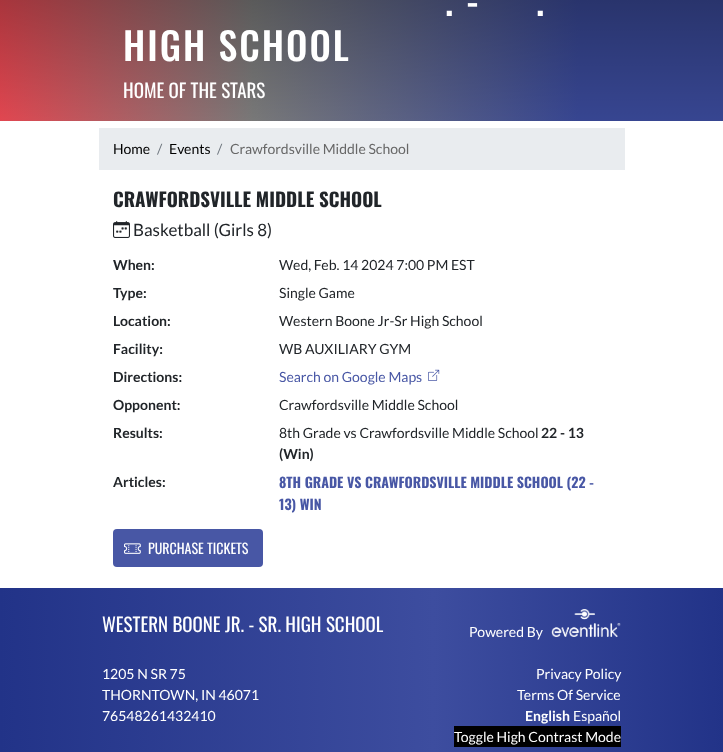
<svg xmlns="http://www.w3.org/2000/svg" width="723" height="752">
	<defs>
		<linearGradient id="g1" gradientUnits="userSpaceOnUse" x1="0" y1="28" x2="723" y2="28"><stop offset="0" stop-color="#E64852" /><stop offset="0.35" stop-color="#7B7B7B" /><stop offset="0.8" stop-color="#384794" /></linearGradient>
		<linearGradient id="g2" gradientUnits="userSpaceOnUse" x1="362" y1="-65" x2="362" y2="132"><stop offset="0" stop-color="#000000" stop-opacity="0.4" /><stop offset="1" stop-color="#000000" stop-opacity="0" /></linearGradient>
		<linearGradient id="g3" gradientUnits="userSpaceOnUse" x1="0" y1="688" x2="723" y2="688"><stop offset="0" stop-color="#223388" /><stop offset="0.6" stop-color="#3D4D9F" /><stop offset="1" stop-color="#223388" /></linearGradient>
	</defs>
	<rect width="100%" height="100%" fill="#FFFFFF" />
	<rect x="0" y="0" width="723" height="121" fill="url(#g1)" />
	<rect x="0" y="0" width="723" height="121" fill="url(#g2)" />
	<g font-family="Oswald" font-size="38" font-weight="500" letter-spacing="2" fill="#FFFFFF">
		<text x="445" y="16">. -</text>
		<text x="536" y="16">.</text>
		<text x="123" y="61">HIGH SCHOOL</text>
	</g>
	<text x="123" y="98" font-family="Oswald" font-size="19" fill="#FFFFFF">HOME OF THE STARS</text>
	<rect x="99" y="128" width="526" height="42" fill="#E9ECEF" />
	<text x="113" y="154" font-family="Lato" font-size="14" fill="#000000">Home</text>
	<text x="157" y="154" font-family="Lato" font-size="14" fill="#6C757D">/</text>
	<text x="169" y="154" font-family="Lato" font-size="14" fill="#000000">Events</text>
	<text x="217" y="154" font-family="Lato" font-size="14" fill="#6C757D">/</text>
	<text x="230" y="154" font-family="Lato" font-size="14" fill="#676767">Crawfordsville Middle School</text>
	<text x="113" y="207" font-family="Oswald" font-size="19" font-weight="700" fill="#212529">CRAWFORDSVILLE MIDDLE SCHOOL</text>
	<image x="113" y="221" width="17" height="17" href="assets/img1.png" />
	<text x="133" y="236" font-family="Lato" font-size="17" fill="#212529">Basketball (Girls 8)</text>
	<text x="113" y="270" font-family="Lato" font-size="14" font-weight="700" fill="#212529">When:</text>
	<text x="279" y="270" font-family="Lato" font-size="14" fill="#212529">Wed, Feb. 14 2024 7:00 PM EST</text>
	<text x="113" y="298" font-family="Lato" font-size="14" font-weight="700" fill="#212529">Type:</text>
	<text x="279" y="298" font-family="Lato" font-size="14" fill="#212529">Single Game</text>
	<text x="113" y="326" font-family="Lato" font-size="14" font-weight="700" fill="#212529">Location:</text>
	<text x="279" y="326" font-family="Lato" font-size="14" fill="#212529">Western Boone Jr-Sr High School</text>
	<text x="113" y="354" font-family="Lato" font-size="14" font-weight="700" fill="#212529">Facility:</text>
	<text x="279" y="354" font-family="Lato" font-size="14" fill="#212529">WB AUXILIARY GYM</text>
	<text x="113" y="382" font-family="Lato" font-size="14" font-weight="700" fill="#212529">Directions:</text>
	<text x="279" y="382" font-family="Lato" font-size="14" fill="#4857A5">Search on Google Maps</text>
	<image x="428" y="369" width="12" height="12" href="assets/img2.png" />
	<text x="113" y="410" font-family="Lato" font-size="14" font-weight="700" fill="#212529">Opponent:</text>
	<text x="279" y="410" font-family="Lato" font-size="14" fill="#212529">Crawfordsville Middle School</text>
	<text x="113" y="438" font-family="Lato" font-size="14" font-weight="700" fill="#212529">Results:</text>
	<text x="279" y="438" font-family="Lato" font-size="14" fill="#212529">8th Grade vs Crawfordsville Middle School</text>
	<g font-family="Lato" font-size="14" font-weight="700" fill="#212529">
		<text x="541" y="438">22 - 13</text>
		<text x="279" y="459">(Win)</text>
		<text x="113" y="487">Articles:</text>
	</g>
	<g font-family="Oswald" font-size="14" font-weight="700" fill="#4857A5">
		<text x="279" y="488">8TH GRADE VS CRAWFORDSVILLE MIDDLE SCHOOL (22 -</text>
		<text x="279" y="510">13) WIN</text>
	</g>
	<rect x="113" y="529" width="150" height="38" rx="4" fill="#4857A5" />
	<image x="124" y="543" width="17" height="11" href="assets/img3.png" />
	<text x="148" y="554" font-family="Oswald" font-size="14" fill="#FFFFFF">PURCHASE TICKETS</text>
	<rect x="0" y="588" width="723" height="164" fill="url(#g3)" />
	<text x="102" y="632" font-family="Oswald" font-size="19" fill="#FFFFFF">WESTERN BOONE JR. - SR. HIGH SCHOOL</text>
	<text x="469" y="637" font-family="Lato" font-size="14" fill="#FFFFFF">Powered By</text>
	<image x="551" y="609" width="70" height="28" href="assets/img4.png" />
	<g font-family="Lato" font-size="14" fill="#FFFFFF">
		<text x="102" y="679">1205 N SR 75</text>
		<text x="102" y="700">THORNTOWN, IN 46071</text>
		<text x="102" y="721">76548261432410</text>
		<text x="536" y="679">Privacy Policy</text>
		<text x="517" y="700">Terms Of Service</text>
	</g>
	<text x="525" y="721" font-family="Lato" font-size="14" font-weight="700" fill="#FFFFFF">English</text>
	<text x="573" y="721" font-family="Lato" font-size="14" fill="#FFFFFF">Español</text>
	<rect x="454" y="726" width="167" height="21" fill="#000000" />
	<text x="454" y="742" font-family="Lato" font-size="14" fill="#FFFFFF">Toggle High Contrast Mode</text>
</svg>
